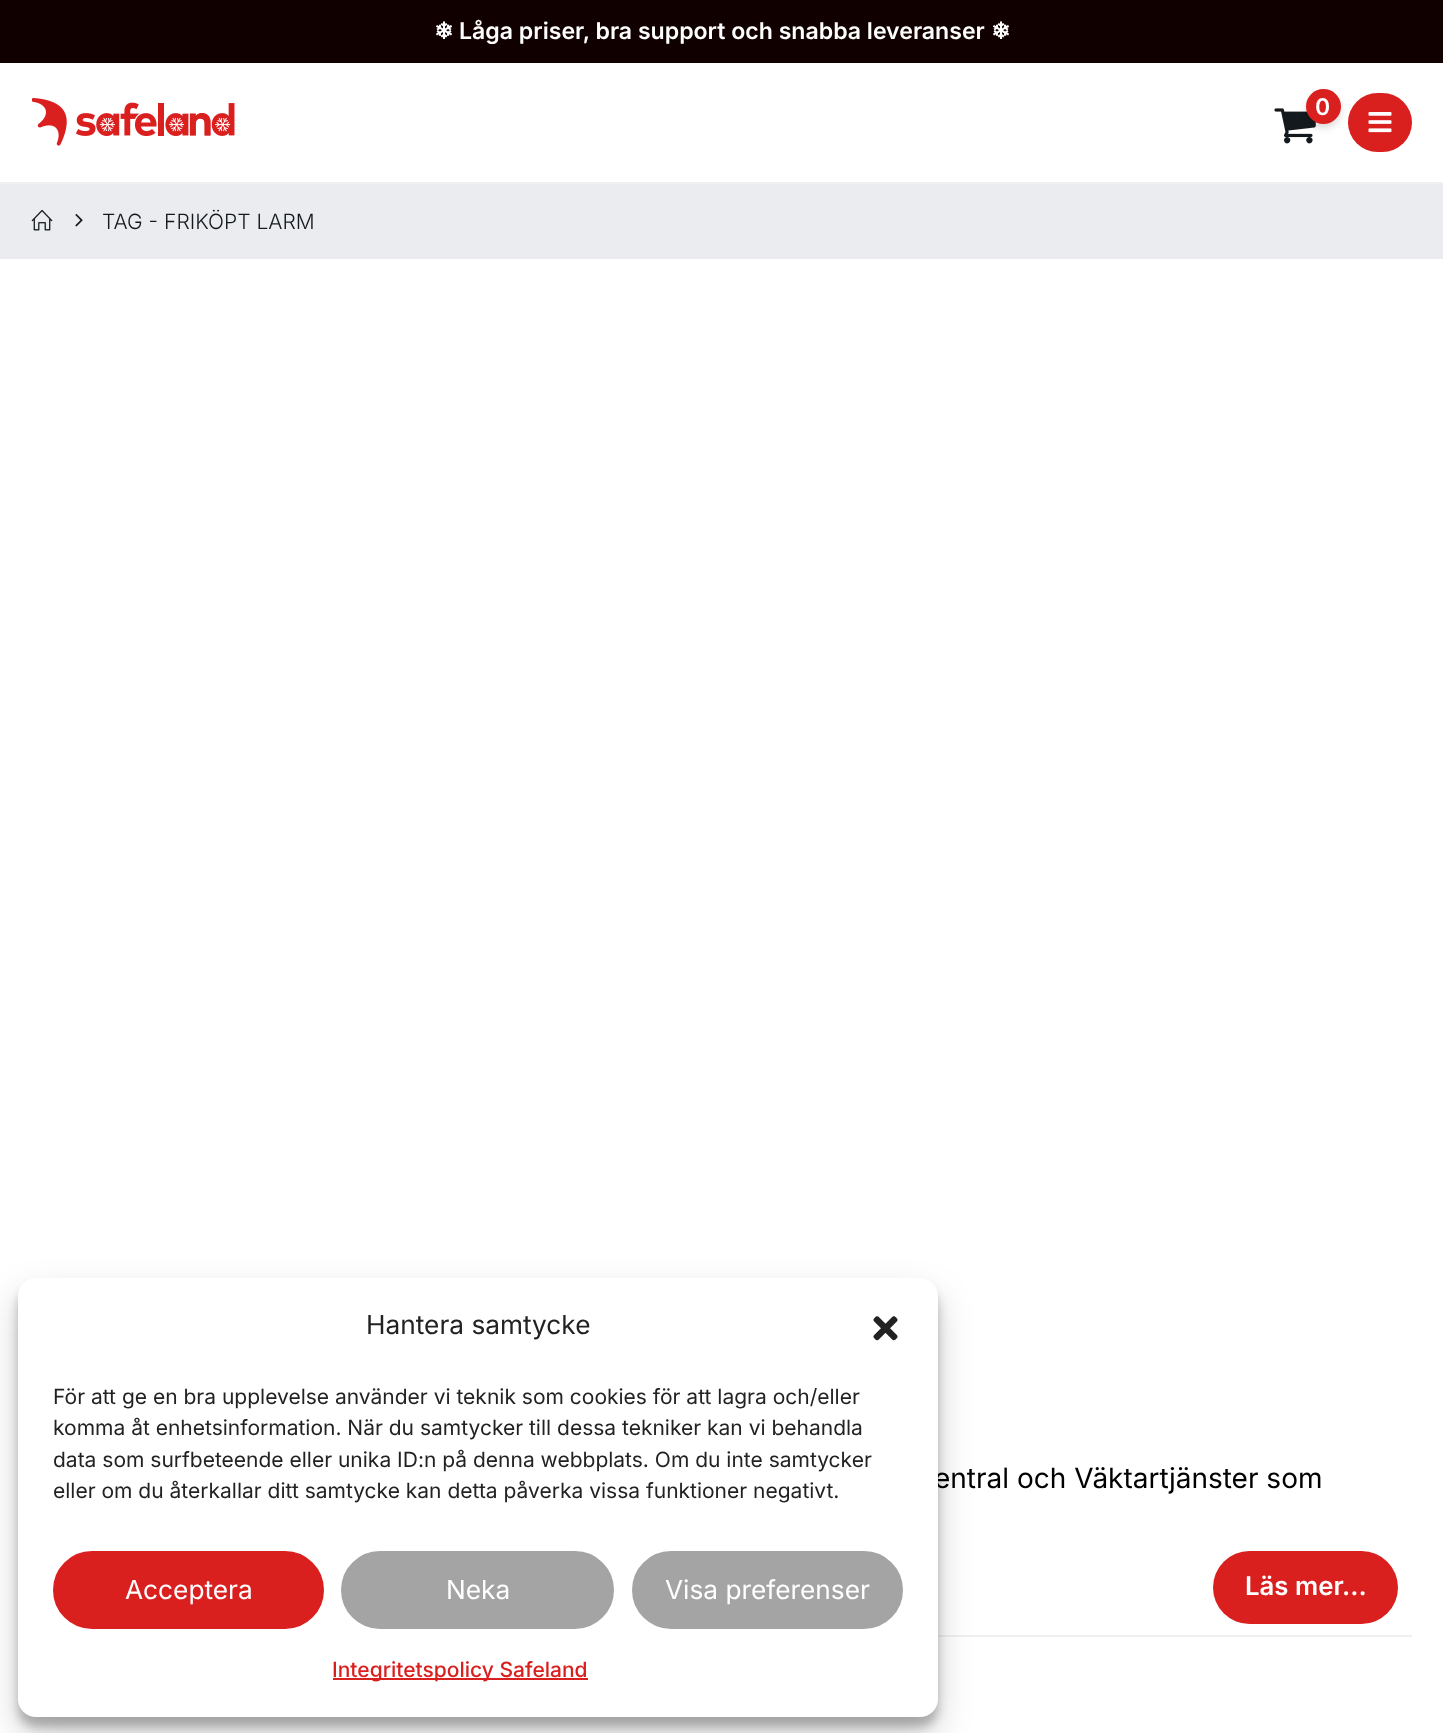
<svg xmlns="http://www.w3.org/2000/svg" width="1443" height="1733">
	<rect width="100%" height="100%" fill="#FFFFFF" />
	<rect x="0" y="0" width="1443" height="63" fill="#110000" />
	<text x="434" y="39" font-family="DejaVu Sans" font-size="23.1" font-weight="700" fill="#FFFFFF">❄</text>
	<text x="459" y="39" font-family="Inter" font-size="23.1" font-weight="600" fill="#FFFFFF">Låga priser, bra support och snabba leveranser</text>
	<text x="991" y="39" font-family="DejaVu Sans" font-size="23.1" font-weight="700" fill="#FFFFFF">❄</text>
	<rect x="0" y="182" width="1443" height="2" fill="#F0F0F0" />
	<image x="32" y="98" width="203" height="48" href="assets/img1.png" />
	<image x="1274" y="108" width="42" height="36" href="assets/img2.png" />
	<rect x="1348" y="93" width="64" height="59" rx="29.5" fill="#DA1F1F" />
	<rect x="1306" y="93" width="35" height="35" rx="17.5" fill="#000000" fill-opacity="0.15" filter="blur(3.5px)" />
	<circle cx="1323.5" cy="106.5" r="17.5" fill="#DA1F1F" />
	<text x="1315" y="115" font-family="Inter" font-size="23" font-weight="600" fill="#FFFFFF">0</text>
	<image x="1368" y="112" width="24" height="21" href="assets/img3.png" />
	<rect x="0" y="184" width="1443" height="75" fill="#EAECF0" />
	<image x="31" y="209" width="22" height="22" href="assets/img4.png" />
	<image x="75" y="214" width="8" height="13" href="assets/img5.png" />
	<text x="102" y="229" font-family="Inter" font-size="21" font-weight="300" fill="#14191E">TAG - FRIKÖPT LARM</text>
	<rect x="938" y="1635" width="474" height="2" fill="#F0F0F0" />
	<text x="934" y="1488" font-family="Inter" font-size="28" fill="#000000">entral och Väktartjänster som</text>
	<rect x="1213" y="1551" width="185" height="73" rx="36.5" fill="#DA1F1F" />
	<text x="1245" y="1595" font-family="Inter" font-size="25.75" font-weight="600" fill="#FFFFFF">Läs mer...</text>
	<rect x="18" y="1288" width="920" height="439" rx="18" fill="#000000" fill-opacity="0.23" filter="blur(5px)" />
	<rect x="18" y="1295" width="920" height="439" rx="18" fill="#000000" fill-opacity="0.19" filter="blur(17.5px)" />
	<rect x="18" y="1278" width="920" height="439" rx="18" fill="#FFFFFF" />
	<text x="366" y="1334" font-family="Inter" font-size="26.25" fill="#222222">Hantera samtycke</text>
	<image x="873" y="1316" width="25" height="25" href="assets/img6.png" />
	<g font-family="Inter" font-size="21" fill="#222222">
		<text x="53" y="1404">För att ge en bra upplevelse använder vi teknik som cookies för att lagra och/eller</text>
		<text x="53" y="1435">komma åt enhetsinformation. När du samtycker till dessa tekniker kan vi behandla</text>
		<text x="53" y="1467">data som surfbeteende eller unika ID:n på denna webbplats. Om du inte samtycker</text>
		<text x="53" y="1498">eller om du återkallar ditt samtycke kan detta påverka vissa funktioner negativt.</text>
	</g>
	<rect x="54" y="1552" width="269" height="76" rx="38" fill="#DA1F1F" stroke="#DA1F1F" stroke-width="2" />
	<text x="125" y="1599" font-family="Inter" font-size="26.25" fill="#FFFFFF">Acceptera</text>
	<rect x="342" y="1552" width="271" height="76" rx="38" fill="#A4A4A4" stroke="#A4A4A4" stroke-width="2" />
	<text x="446" y="1599" font-family="Inter" font-size="26.25" fill="#FFFFFF">Neka</text>
	<rect x="633" y="1552" width="269" height="76" rx="38" fill="#A4A4A4" stroke="#A4A4A4" stroke-width="2" />
	<text x="665" y="1599" font-family="Inter" font-size="26.25" fill="#FFFFFF">Visa preferenser</text>
	<rect x="333" y="1678" width="255" height="2" fill="#DA1F1F" />
	<text x="332" y="1677" font-family="Inter" font-size="21" font-weight="500" fill="#DA1F1F">Integritetspolicy Safeland</text>
</svg>
